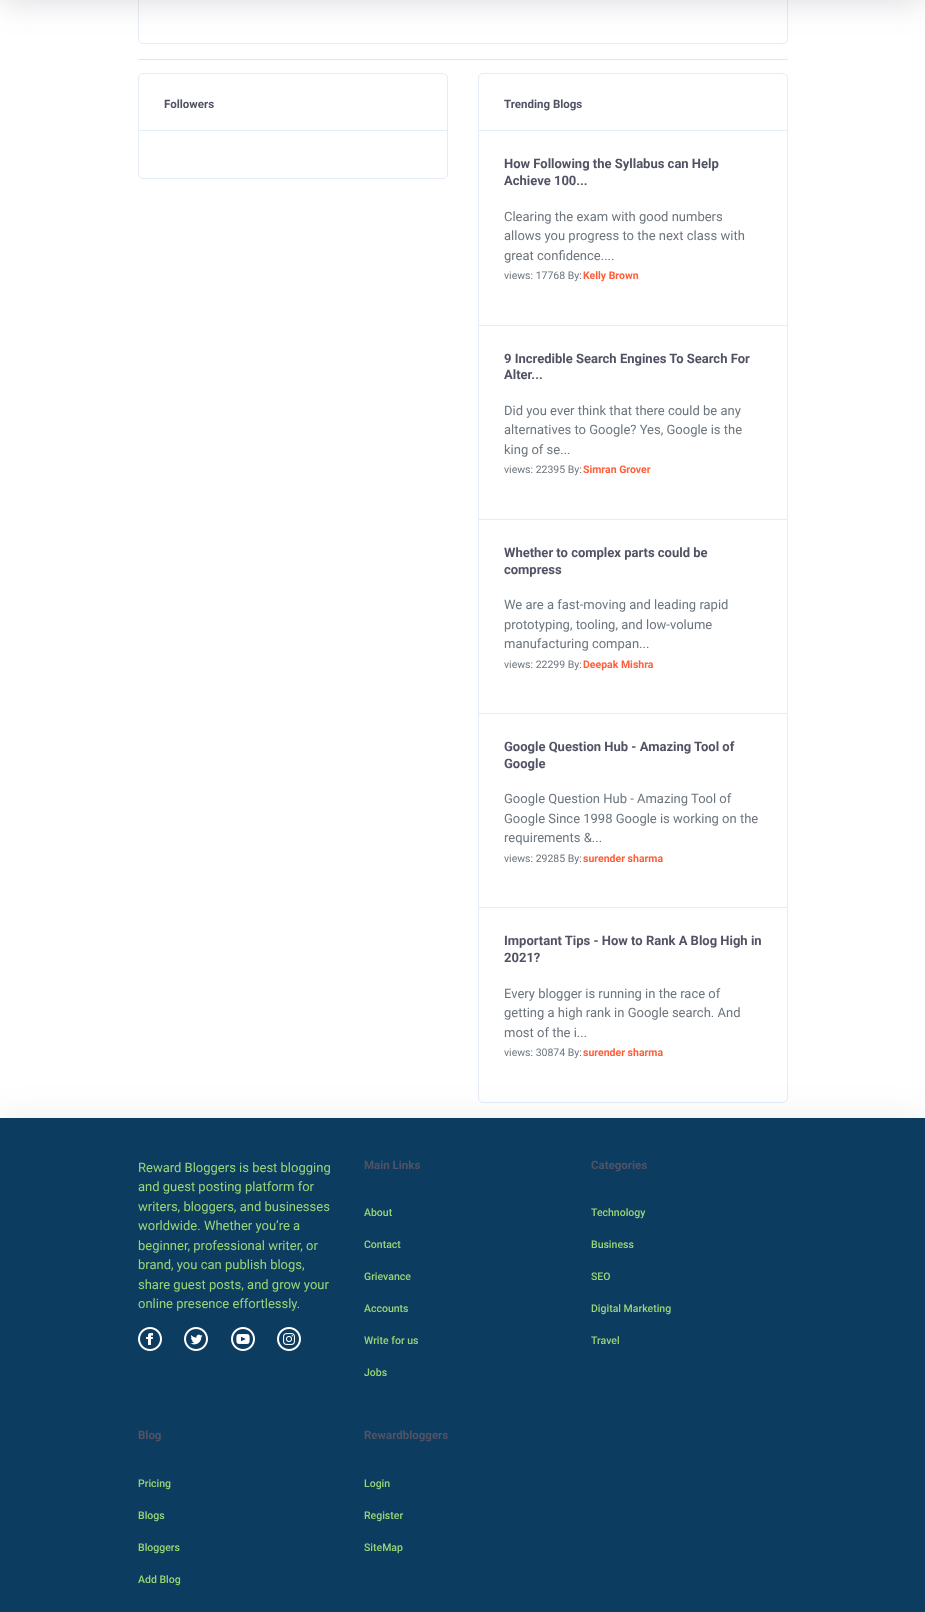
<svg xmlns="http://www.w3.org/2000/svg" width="925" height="1612">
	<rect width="100%" height="100%" fill="#FFFFFF" />
	<rect x="138.5" y="-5.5" width="649" height="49" rx="4.5" fill="none" stroke="#E6ECF5" />
	<rect x="0" y="-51" width="925" height="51" fill="#3F4257" fill-opacity="0.2" filter="blur(17px)" />
	<rect x="138" y="59" width="650" height="1" fill="#E6E6E6" />
	<rect x="138.5" y="73.5" width="309" height="105" rx="4.5" fill="none" stroke="#E6ECF5" />
	<rect x="139" y="130" width="308" height="1" fill="#E6ECF5" />
	<text x="164" y="108" font-family="Roboto" font-size="11.5" font-weight="700" fill="#515365">Followers</text>
	<rect x="478.5" y="73.5" width="309" height="1029" rx="4.5" fill="none" stroke="#E6ECF5" />
	<rect x="479" y="130" width="308" height="1" fill="#E6ECF5" />
	<text x="504" y="108" font-family="Roboto" font-size="11.5" font-weight="700" fill="#515365">Trending Blogs</text>
	<rect x="479" y="325" width="308" height="1" fill="#E6ECF5" />
	<g font-family="Roboto" font-size="13" font-weight="700" fill="#515365">
		<text x="504" y="168">How Following the Syllabus can Help</text>
		<text x="504" y="185">Achieve 100...</text>
	</g>
	<g font-family="Roboto" font-size="13" fill="#6C757D">
		<text x="504" y="221">Clearing the exam with good numbers</text>
		<text x="504" y="240">allows you progress to the next class with</text>
		<text x="504" y="260">great confidence....</text>
	</g>
	<text x="504" y="279" font-family="Roboto" font-size="10.5" fill="#6C757D">views: 17768 By:</text>
	<text x="583" y="279" font-family="Roboto" font-size="10.5" font-weight="700" fill="#FF5E3A">Kelly Brown</text>
	<rect x="479" y="519" width="308" height="1" fill="#E6ECF5" />
	<g font-family="Roboto" font-size="13" font-weight="700" fill="#515365">
		<text x="504" y="363">9 Incredible Search Engines To Search For</text>
		<text x="504" y="379">Alter...</text>
	</g>
	<g font-family="Roboto" font-size="13" fill="#6C757D">
		<text x="504" y="415">Did you ever think that there could be any</text>
		<text x="504" y="434">alternatives to Google? Yes, Google is the</text>
		<text x="504" y="454">king of se...</text>
	</g>
	<text x="504" y="473" font-family="Roboto" font-size="10.5" fill="#6C757D">views: 22395 By:</text>
	<text x="583" y="473" font-family="Roboto" font-size="10.5" font-weight="700" fill="#FF5E3A">Simran Grover</text>
	<rect x="479" y="713" width="308" height="1" fill="#E6ECF5" />
	<g font-family="Roboto" font-size="13" font-weight="700" fill="#515365">
		<text x="504" y="557">Whether to complex parts could be</text>
		<text x="504" y="574">compress</text>
	</g>
	<g font-family="Roboto" font-size="13" fill="#6C757D">
		<text x="504" y="609">We are a fast-moving and leading rapid</text>
		<text x="504" y="629">prototyping, tooling, and low-volume</text>
		<text x="504" y="648">manufacturing compan...</text>
	</g>
	<text x="504" y="668" font-family="Roboto" font-size="10.5" fill="#6C757D">views: 22299 By:</text>
	<text x="583" y="668" font-family="Roboto" font-size="10.5" font-weight="700" fill="#FF5E3A">Deepak Mishra</text>
	<rect x="479" y="907" width="308" height="1" fill="#E6ECF5" />
	<g font-family="Roboto" font-size="13" font-weight="700" fill="#515365">
		<text x="504" y="751">Google Question Hub - Amazing Tool of</text>
		<text x="504" y="768">Google</text>
	</g>
	<g font-family="Roboto" font-size="13" fill="#6C757D">
		<text x="504" y="803">Google Question Hub - Amazing Tool of</text>
		<text x="504" y="823">Google Since 1998 Google is working on the</text>
		<text x="504" y="842">requirements &amp;...</text>
	</g>
	<text x="504" y="862" font-family="Roboto" font-size="10.5" fill="#6C757D">views: 29285 By:</text>
	<text x="583" y="862" font-family="Roboto" font-size="10.5" font-weight="700" fill="#FF5E3A">surender sharma</text>
	<g font-family="Roboto" font-size="13" font-weight="700" fill="#515365">
		<text x="504" y="945">Important Tips - How to Rank A Blog High in</text>
		<text x="504" y="962">2021?</text>
	</g>
	<g font-family="Roboto" font-size="13" fill="#6C757D">
		<text x="504" y="998">Every blogger is running in the race of</text>
		<text x="504" y="1017">getting a high rank in Google search. And</text>
		<text x="504" y="1037">most of the i...</text>
	</g>
	<text x="504" y="1056" font-family="Roboto" font-size="10.5" fill="#6C757D">views: 30874 By:</text>
	<text x="583" y="1056" font-family="Roboto" font-size="10.5" font-weight="700" fill="#FF5E3A">surender sharma</text>
	<rect x="0" y="1118" width="925" height="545" fill="#3F4257" fill-opacity="0.1" filter="blur(17px)" />
	<rect x="0" y="1118" width="925" height="494" fill="#0C3C60" />
	<g font-family="Roboto" font-size="13" fill="#9AD478">
		<text x="138" y="1172">Reward Bloggers is best blogging</text>
		<text x="138" y="1191">and guest posting platform for</text>
		<text x="138" y="1211">writers, bloggers, and businesses</text>
		<text x="138" y="1230">worldwide. Whether you’re a</text>
		<text x="138" y="1250">beginner, professional writer, or</text>
		<text x="138" y="1269">brand, you can publish blogs,</text>
		<text x="138" y="1289">share guest posts, and grow your</text>
		<text x="138" y="1308">online presence effortlessly.</text>
	</g>
	<image x="138" y="1327" width="24" height="24" href="assets/img1.png" />
	<image x="184" y="1327" width="24" height="24" href="assets/img2.png" />
	<image x="231" y="1327" width="24" height="24" href="assets/img3.png" />
	<image x="277" y="1327" width="24" height="24" href="assets/img4.png" />
	<text x="364" y="1169" font-family="Roboto" font-size="11.5" font-weight="700" fill="#515365">Main Links</text>
	<g font-family="Roboto" font-size="10.5" font-weight="500" fill="#9AD478">
		<text x="364" y="1216">About</text>
		<text x="364" y="1248">Contact</text>
		<text x="364" y="1280">Grievance</text>
		<text x="364" y="1312">Accounts</text>
		<text x="364" y="1344">Write for us</text>
		<text x="364" y="1376">Jobs</text>
	</g>
	<text x="591" y="1169" font-family="Roboto" font-size="11.5" font-weight="700" fill="#515365">Categories</text>
	<g font-family="Roboto" font-size="10.5" font-weight="500" fill="#9AD478">
		<text x="591" y="1216">Technology</text>
		<text x="591" y="1248">Business</text>
		<text x="591" y="1280">SEO</text>
		<text x="591" y="1312">Digital Marketing</text>
		<text x="591" y="1344">Travel</text>
	</g>
	<text x="138" y="1439" font-family="Roboto" font-size="11.5" font-weight="700" fill="#515365">Blog</text>
	<g font-family="Roboto" font-size="10.5" font-weight="500" fill="#9AD478">
		<text x="138" y="1487">Pricing</text>
		<text x="138" y="1519">Blogs</text>
		<text x="138" y="1551">Bloggers</text>
		<text x="138" y="1583">Add Blog</text>
	</g>
	<text x="364" y="1439" font-family="Roboto" font-size="11.5" font-weight="700" fill="#515365">Rewardbloggers</text>
	<g font-family="Roboto" font-size="10.5" font-weight="500" fill="#9AD478">
		<text x="364" y="1487">Login</text>
		<text x="364" y="1519">Register</text>
		<text x="364" y="1551">SiteMap</text>
	</g>
</svg>
